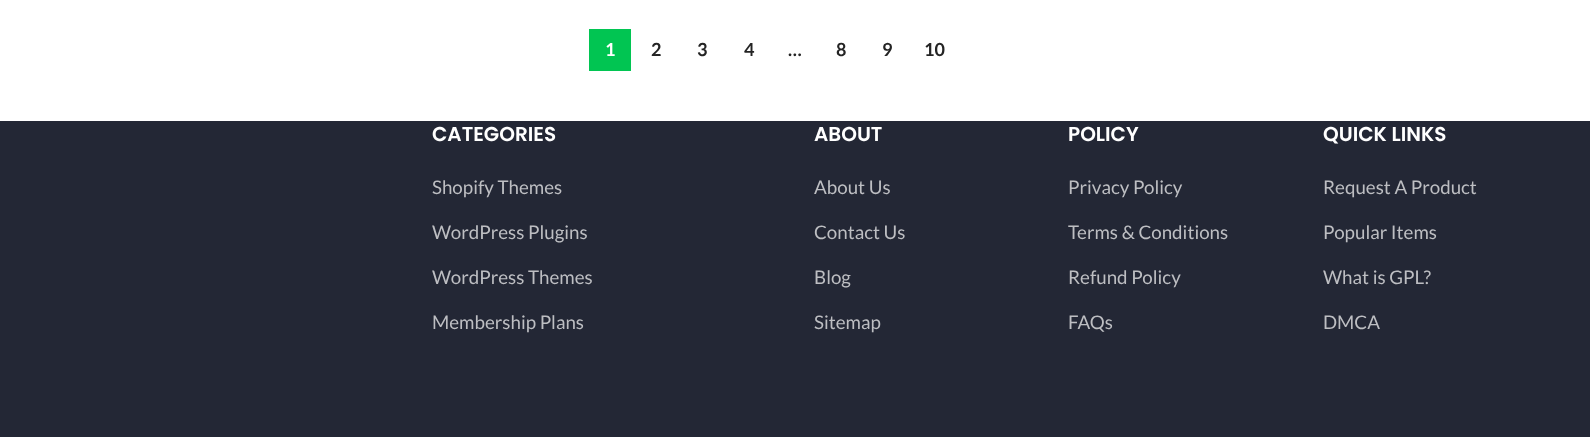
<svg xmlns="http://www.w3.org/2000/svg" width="1590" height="437">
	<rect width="100%" height="100%" fill="#FFFFFF" />
	<rect x="589" y="29" width="42" height="42" fill="#01C552" />
	<text x="605" y="56" font-family="Lato" font-size="18" font-weight="700" fill="#FFFFFF">1</text>
	<g font-family="Lato" font-size="18" font-weight="700" fill="#242424">
		<text x="651" y="56">2</text>
		<text x="697" y="56">3</text>
		<text x="744" y="56">4</text>
		<text x="788" y="56">…</text>
		<text x="836" y="56">8</text>
		<text x="882" y="56">9</text>
		<text x="924" y="56">10</text>
	</g>
	<rect x="0" y="121" width="1590" height="316" fill="#232735" />
	<text x="432" y="141" font-family="Poppins" font-size="20" font-weight="600" fill="#FFFFFF">CATEGORIES</text>
	<g font-family="Lato" font-size="18.75" fill="#BDBEC2">
		<text x="432" y="194">Shopify Themes</text>
		<text x="432" y="239">WordPress Plugins</text>
		<text x="432" y="284">WordPress Themes</text>
		<text x="432" y="329">Membership Plans</text>
	</g>
	<text x="814" y="141" font-family="Poppins" font-size="20" font-weight="600" fill="#FFFFFF">ABOUT</text>
	<g font-family="Lato" font-size="18.75" fill="#BDBEC2">
		<text x="814" y="194">About Us</text>
		<text x="814" y="239">Contact Us</text>
		<text x="814" y="284">Blog</text>
		<text x="814" y="329">Sitemap</text>
	</g>
	<text x="1068" y="141" font-family="Poppins" font-size="20" font-weight="600" fill="#FFFFFF">POLICY</text>
	<g font-family="Lato" font-size="18.75" fill="#BDBEC2">
		<text x="1068" y="194">Privacy Policy</text>
		<text x="1068" y="239">Terms &amp; Conditions</text>
		<text x="1068" y="284">Refund Policy</text>
		<text x="1068" y="329">FAQs</text>
	</g>
	<text x="1323" y="141" font-family="Poppins" font-size="20" font-weight="600" fill="#FFFFFF">QUICK LINKS</text>
	<g font-family="Lato" font-size="18.75" fill="#BDBEC2">
		<text x="1323" y="194">Request A Product</text>
		<text x="1323" y="239">Popular Items</text>
		<text x="1323" y="284">What is GPL?</text>
		<text x="1323" y="329">DMCA</text>
	</g>
</svg>
